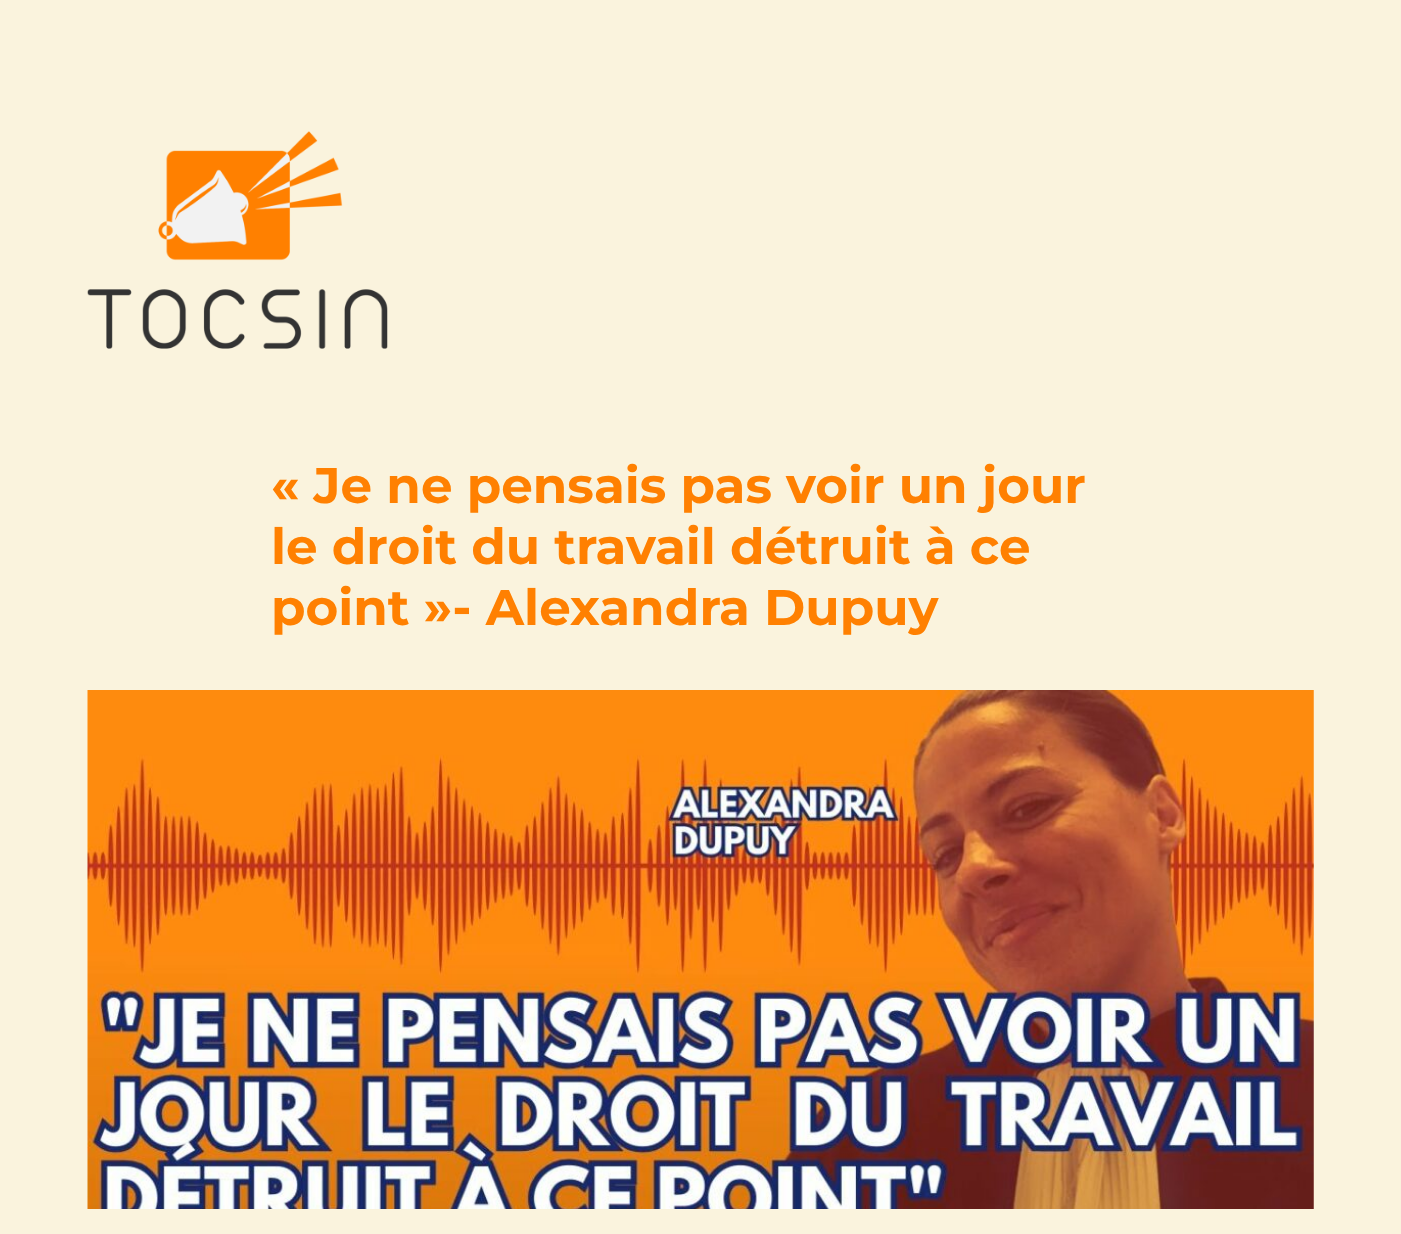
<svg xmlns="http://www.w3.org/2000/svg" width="1401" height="1234">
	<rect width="100%" height="100%" fill="#FAF3DD" />
	<image x="87" y="131" width="301" height="218" href="assets/img1.png" />
	<g font-family="Montserrat" font-size="50" font-weight="100" fill="#FF8001">
		<text x="271" y="503">« Je ne pensais pas voir un jour</text>
		<text x="271" y="564">le droit du travail détruit à ce</text>
		<text x="271" y="625">point »- Alexandra Dupuy</text>
	</g>
	<image x="87" y="690" width="1227" height="519" href="assets/img2.png" />
</svg>
